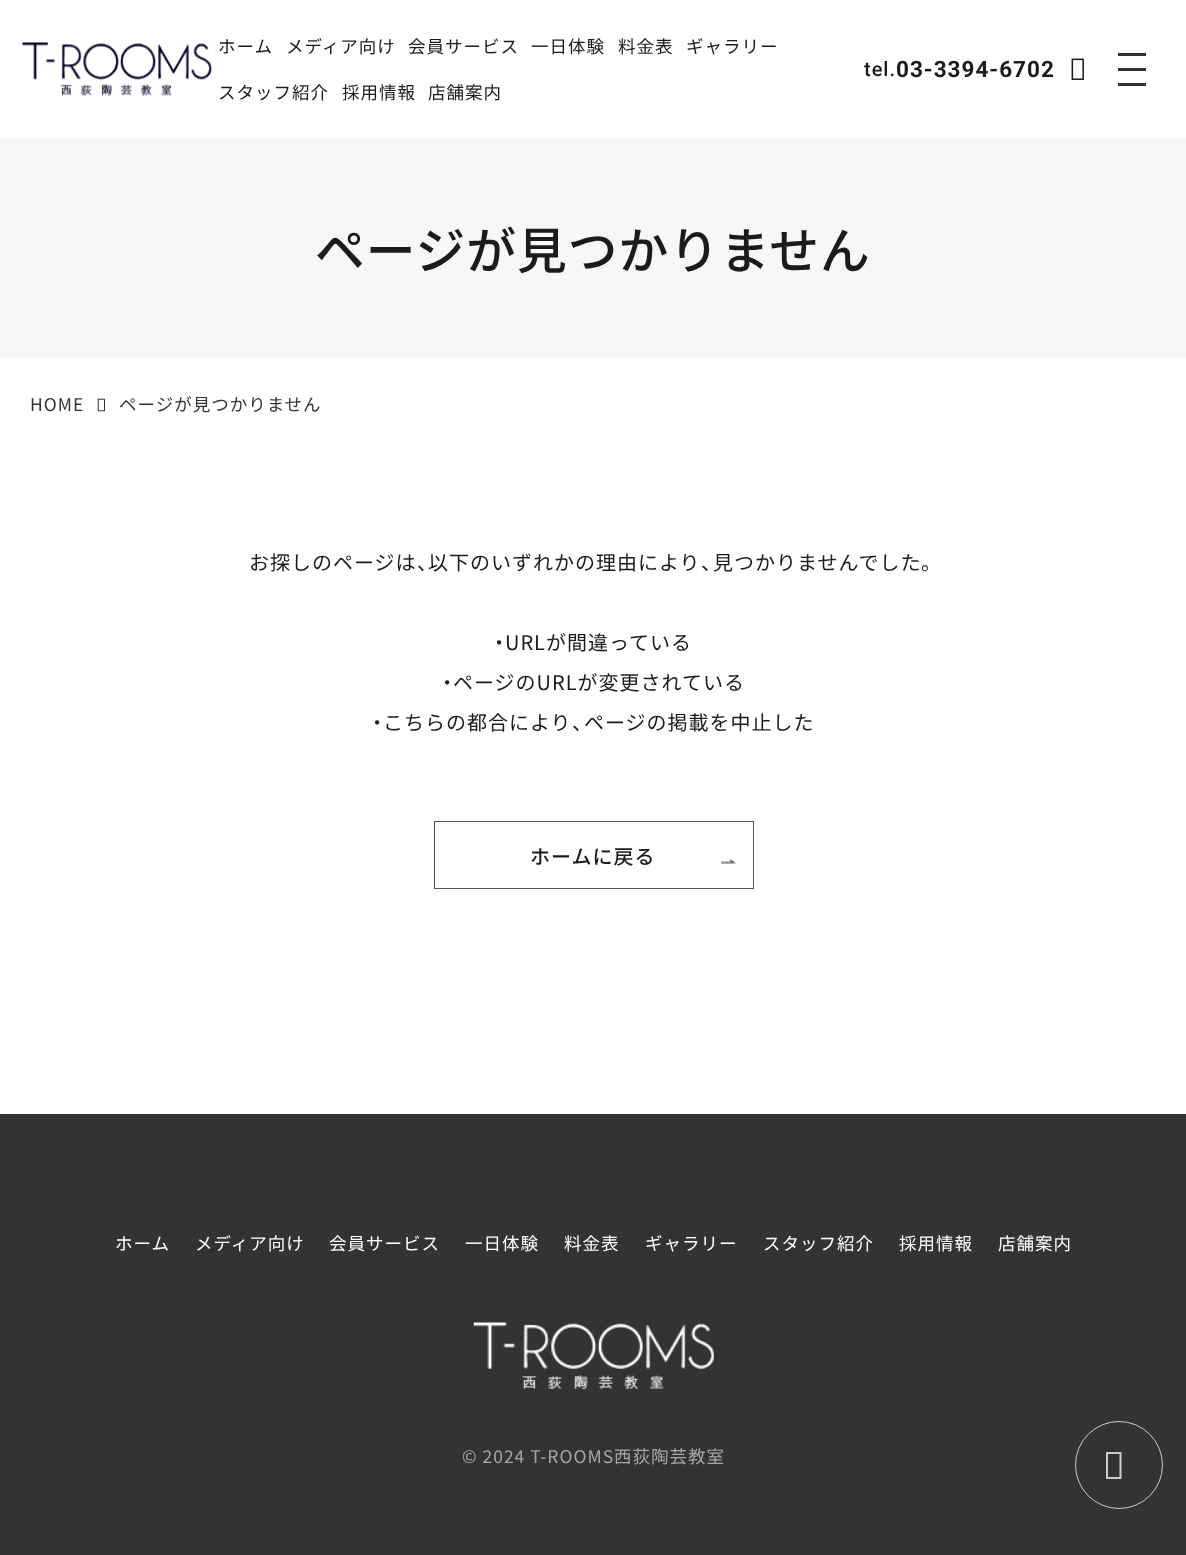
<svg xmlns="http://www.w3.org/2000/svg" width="1186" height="1555">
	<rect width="100%" height="100%" fill="#FFFFFF" />
	<image x="22" y="42" width="190" height="54" href="assets/img1.png" />
	<g font-family="Noto Sans JP" font-size="17.5" letter-spacing="1" fill="#1C1B1B">
		<text x="218" y="53">ホーム</text>
		<text x="286" y="53">メディア向け</text>
		<text x="408" y="53">会員サービス</text>
		<text x="531" y="53">一日体験</text>
		<text x="618" y="53">料金表</text>
		<text x="686" y="53">ギャラリー</text>
		<text x="218" y="99">スタッフ紹介</text>
		<text x="342" y="99">採用情報</text>
		<text x="428" y="99">店舗案内</text>
	</g>
	<text x="864" y="76" font-family="Roboto" font-size="20" font-weight="500" letter-spacing="1" fill="#1C1B1B">tel.</text>
	<text x="896" y="77" font-family="Roboto" font-size="22.5" font-weight="700" letter-spacing="1" fill="#1C1B1B">03-3394-6702</text>
	<image x="1071" y="58" width="13" height="22" href="assets/img2.png" />
	<rect x="1118" y="53" width="28" height="3" fill="#333333" />
	<rect x="1118" y="68" width="28" height="3" fill="#333333" />
	<rect x="1118" y="83" width="28" height="3" fill="#333333" />
	<rect x="0" y="138" width="1186" height="220" fill="#F7F7F7" />
	<text x="315" y="269" font-family="Noto Sans JP" font-size="49.75" font-weight="500" letter-spacing="1" fill="#1C1B1B">ページが見つかりません</text>
	<text x="30" y="411" font-family="Noto Sans JP" font-size="17.5" letter-spacing="1" fill="#333333">HOME</text>
	<image x="97" y="398" width="8" height="14" href="assets/img3.png" />
	<text x="119" y="411" font-family="Noto Sans JP" font-size="17.5" letter-spacing="1" fill="#333333">ページが見つかりません</text>
	<text x="249" y="570" font-family="Noto Sans JP" font-size="20" letter-spacing="1" fill="#1C1B1B">お探しのページは</text>
	<text x="417" y="570" font-family="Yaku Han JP" font-size="20" letter-spacing="1" fill="#1C1B1B">、</text>
	<text x="428" y="570" font-family="Noto Sans JP" font-size="20" letter-spacing="1" fill="#1C1B1B">以下のいずれかの理由により</text>
	<text x="701" y="570" font-family="Yaku Han JP" font-size="20" letter-spacing="1" fill="#1C1B1B">、</text>
	<text x="713" y="570" font-family="Noto Sans JP" font-size="20" letter-spacing="1" fill="#1C1B1B">見つかりませんでした</text>
	<g font-family="Yaku Han JP" font-size="20" letter-spacing="1" fill="#1C1B1B">
		<text x="921" y="570">。</text>
		<text x="494" y="650">・</text>
	</g>
	<text x="505" y="650" font-family="Noto Sans JP" font-size="20" letter-spacing="1" fill="#1C1B1B">URLが間違っている</text>
	<text x="442" y="690" font-family="Yaku Han JP" font-size="20" letter-spacing="1" fill="#1C1B1B">・</text>
	<text x="453" y="690" font-family="Noto Sans JP" font-size="20" letter-spacing="1" fill="#1C1B1B">ページのURLが変更されている</text>
	<text x="372" y="730" font-family="Yaku Han JP" font-size="20" letter-spacing="1" fill="#1C1B1B">・</text>
	<g font-family="Noto Sans JP" font-size="20" letter-spacing="1" fill="#1C1B1B">
		<text x="383" y="730">こちらの都合により</text>
		<text x="584" y="730">ページの掲載を中止した</text>
	</g>
	<text x="572" y="730" font-family="Yaku Han JP" font-size="20" letter-spacing="1" fill="#1C1B1B">、</text>
	<rect x="434.5" y="821.5" width="319" height="67" fill="none" stroke="#545454" />
	<text x="530" y="864" font-family="Noto Sans JP" font-size="20" font-weight="500" letter-spacing="1" fill="#1C1B1B">ホームに戻る</text>
	<image x="721" y="858" width="16" height="6" href="assets/img4.png" />
	<rect x="0" y="1114" width="1186" height="441" fill="#333333" />
	<g font-family="Noto Sans JP" font-size="17.5" letter-spacing="1" fill="#FFFFFF">
		<text x="115" y="1250">ホーム</text>
		<text x="195" y="1250">メディア向け</text>
		<text x="329" y="1250">会員サービス</text>
		<text x="465" y="1250">一日体験</text>
		<text x="564" y="1250">料金表</text>
		<text x="645" y="1250">ギャラリー</text>
		<text x="763" y="1250">スタッフ紹介</text>
		<text x="899" y="1250">採用情報</text>
		<text x="998" y="1250">店舗案内</text>
	</g>
	<image x="473" y="1322" width="241" height="67" href="assets/img5.png" />
	<text x="462" y="1463" font-family="Noto Sans JP" font-size="17.5" letter-spacing="1" fill="#A7A7A7">© 2024 T-ROOMS西荻陶芸教室</text>
	<circle cx="1119" cy="1465" r="43.5" fill="none" stroke="#CCCCCC" />
	<path d="M1106 1479V1452H1121.5V1479ZM1108 1477H1119.5V1454H1108Z" fill="#CCCCCC" />
</svg>
